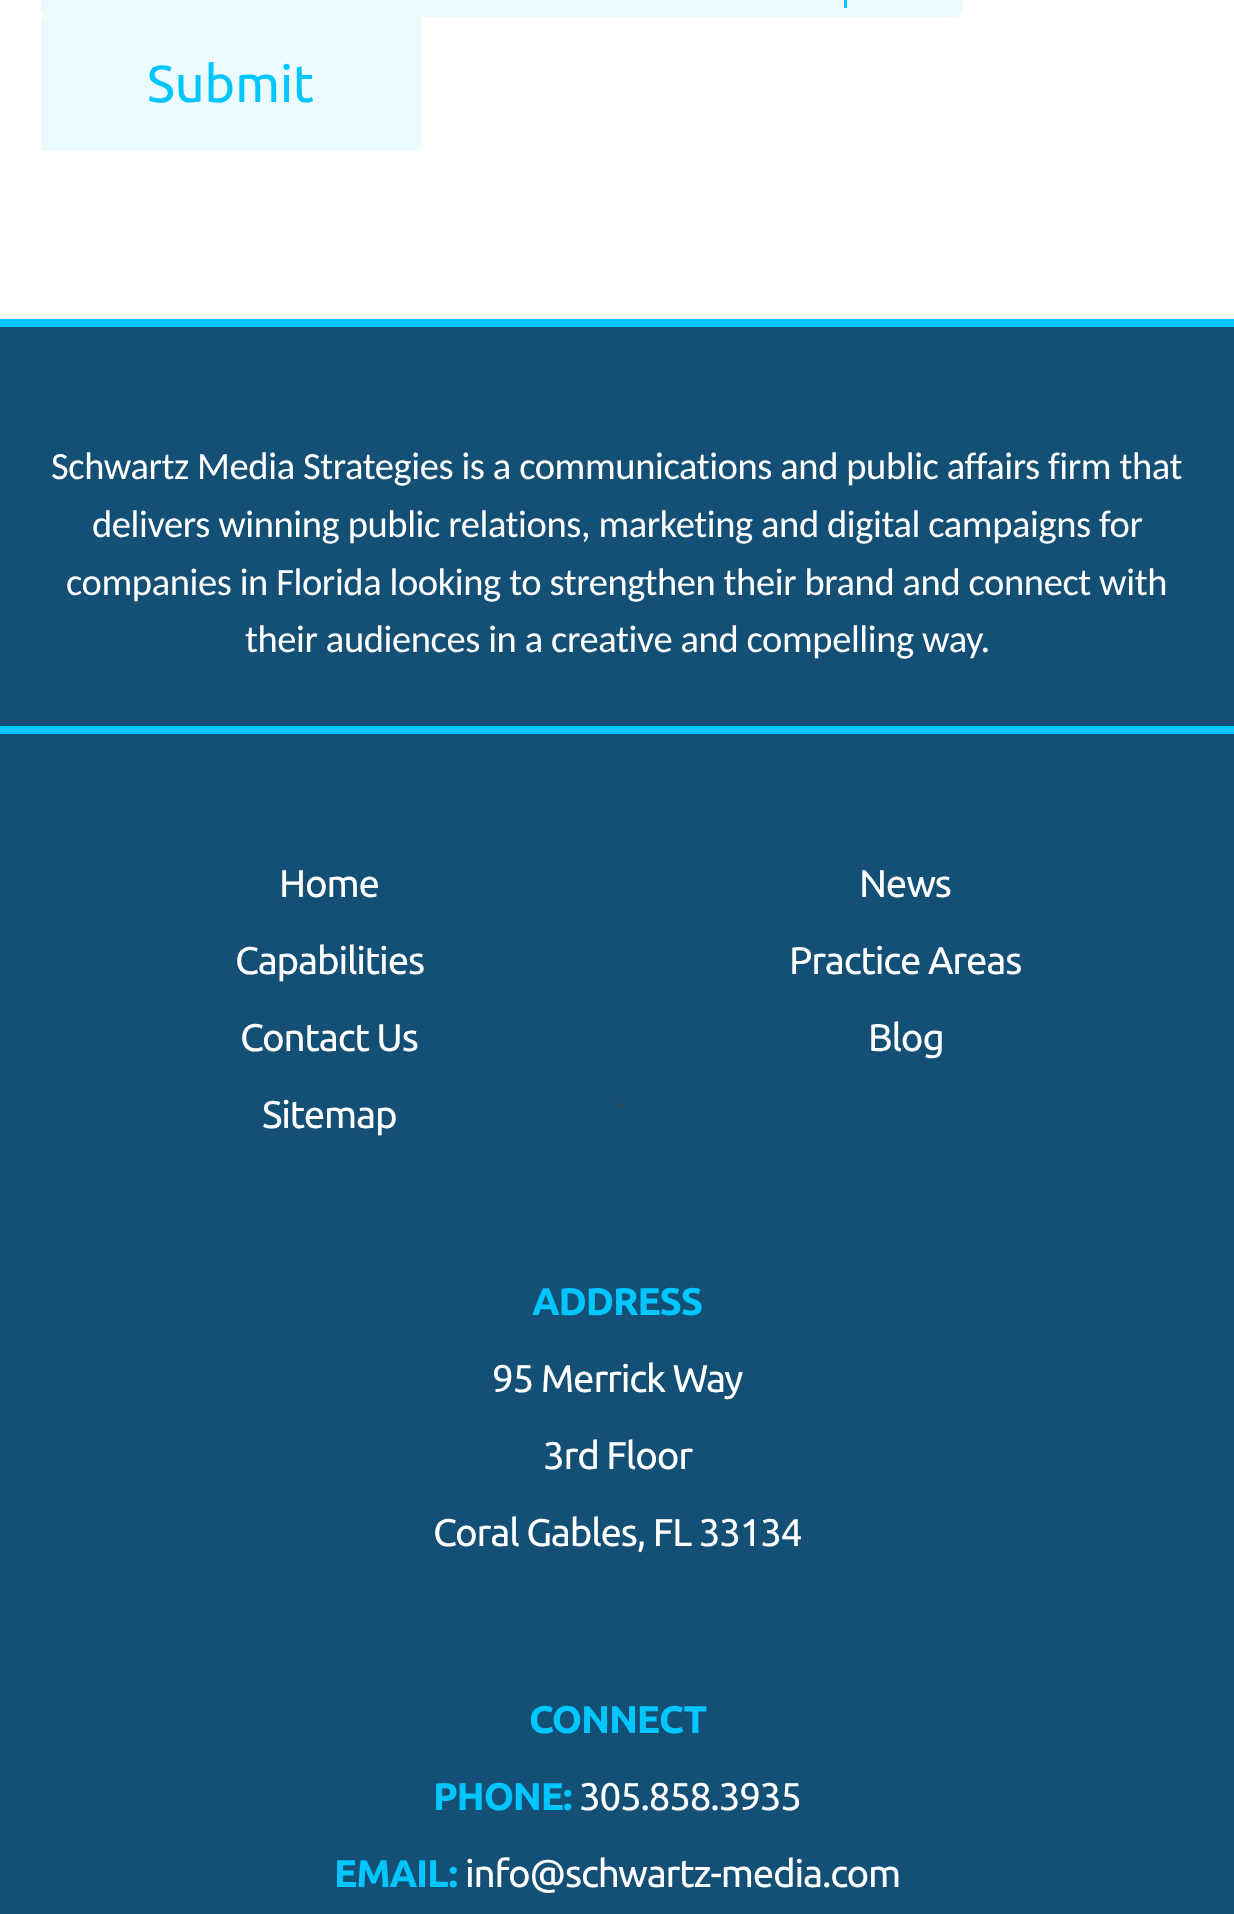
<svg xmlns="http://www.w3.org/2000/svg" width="1234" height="1914">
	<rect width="100%" height="100%" fill="#FFFFFF" />
	<rect x="41" y="-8" width="922" height="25" rx="8" fill="#EDFAFE" />
	<rect x="844" y="0" width="3" height="8" fill="#00C6FF" />
	<rect x="41" y="17" width="380" height="134" fill="#EDFAFE" />
	<text x="147" y="102" font-family="Ubuntu" font-size="52" fill="#00C6FF">Submit</text>
	<rect x="0" y="327" width="1234" height="1587" fill="#145075" />
	<rect x="0" y="319" width="1234" height="8" fill="#00C6FF" />
	<g font-family="Carlito" font-size="38.5" letter-spacing="-0.4" fill="#FFFFFF">
		<text x="51" y="479">Schwartz Media Strategies is a communications and public affairs firm that</text>
		<text x="92" y="537">delivers winning public relations, marketing and digital campaigns for</text>
		<text x="66" y="595">companies in Florida looking to strengthen their brand and connect with</text>
		<text x="245" y="652">their audiences in a creative and compelling way.</text>
	</g>
	<rect x="0" y="726" width="1234" height="8" fill="#00C6FF" />
	<g font-family="Ubuntu" font-size="38.5" letter-spacing="-1.2" fill="#FFFFFF">
		<text x="279" y="897">Home</text>
		<text x="859" y="897">News</text>
		<text x="235" y="974">Capabilities</text>
		<text x="789" y="974">Practice Areas</text>
		<text x="240" y="1051">Contact Us</text>
		<text x="868" y="1051">Blog</text>
		<text x="262" y="1128">Sitemap</text>
	</g>
	<text x="617" y="1106" font-family="Ubuntu" font-size="28" fill="#404040">.</text>
	<text x="532" y="1315" font-family="Ubuntu" font-size="38.5" font-weight="700" letter-spacing="-1.2" fill="#00C6FF">ADDRESS</text>
	<g font-family="Ubuntu" font-size="38.5" letter-spacing="-1.2" fill="#FFFFFF">
		<text x="492" y="1392">95 Merrick Way</text>
		<text x="543" y="1469">3rd Floor</text>
		<text x="433" y="1546">Coral Gables, FL 33134</text>
	</g>
	<g font-family="Ubuntu" font-size="38.5" font-weight="700" letter-spacing="-1.2" fill="#00C6FF">
		<text x="529" y="1733">CONNECT</text>
		<text x="433" y="1810">PHONE:</text>
	</g>
	<text x="579" y="1810" font-family="Ubuntu" font-size="38.5" letter-spacing="-1.2" fill="#FFFFFF">305.858.3935</text>
	<text x="334" y="1887" font-family="Ubuntu" font-size="38.5" font-weight="700" letter-spacing="-1.2" fill="#00C6FF">EMAIL:</text>
	<text x="465" y="1887" font-family="Ubuntu" font-size="38.5" letter-spacing="-1.2" fill="#FFFFFF">info@schwartz-media.com</text>
</svg>
